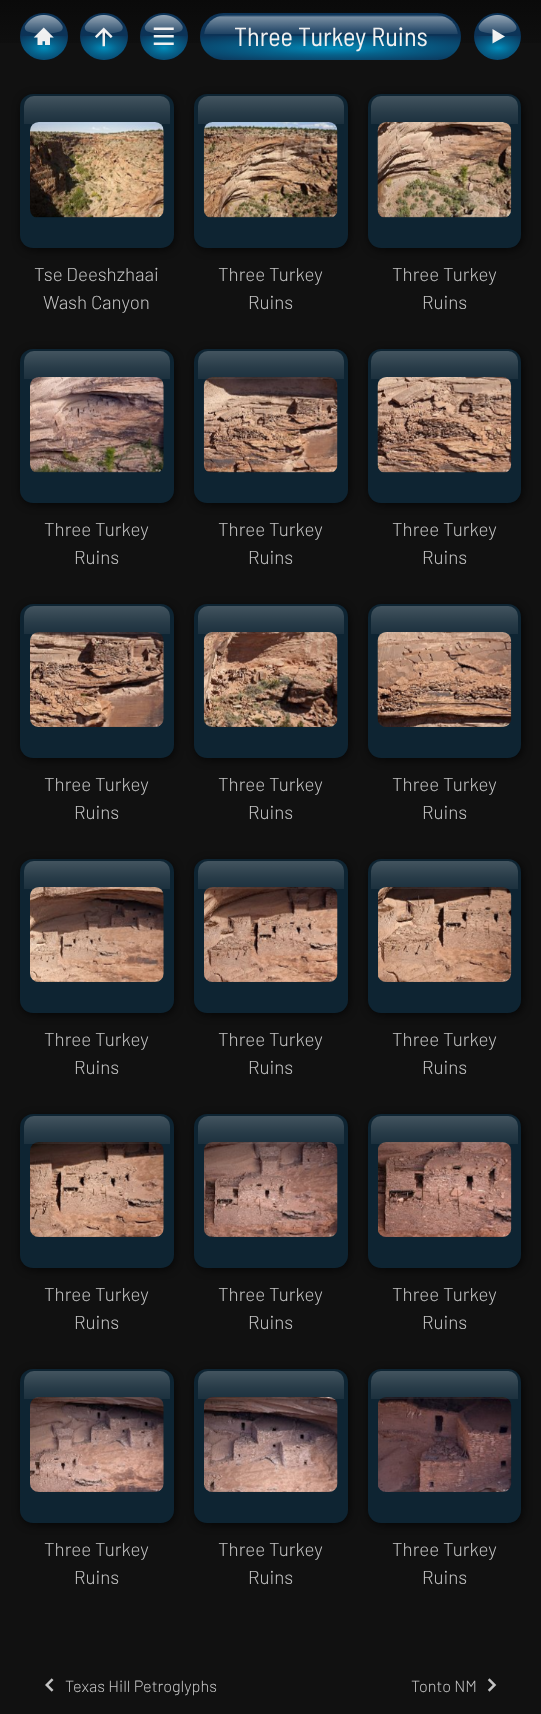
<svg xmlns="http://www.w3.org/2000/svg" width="541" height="1714">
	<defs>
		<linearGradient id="g1" gradientUnits="userSpaceOnUse" x1="271" y1="0" x2="271" y2="73"><stop offset="0" stop-color="#0A0A0A" /><stop offset="0.5" stop-color="#0E0E0E" /><stop offset="1" stop-color="#111111" /></linearGradient>
		<clipPath id="clip1"><rect x="20" y="13" width="48" height="47" rx="23.5" /></clipPath>
		<radialGradient id="g2" gradientUnits="userSpaceOnUse" cx="0" cy="0" r="1" gradientTransform="matrix(34 0 0 17 44 48)"><stop offset="0" stop-color="#0090BF" stop-opacity="0.95" /><stop offset="0.4" stop-color="#0090BF" stop-opacity="0.5" /><stop offset="1" stop-color="#0090BF" stop-opacity="0" /></radialGradient>
		<clipPath id="clip2"><rect x="80" y="13" width="48" height="47" rx="23.5" /></clipPath>
		<radialGradient id="g3" gradientUnits="userSpaceOnUse" cx="0" cy="0" r="1" gradientTransform="matrix(34 0 0 17 104 48)"><stop offset="0" stop-color="#0090BF" stop-opacity="0.95" /><stop offset="0.4" stop-color="#0090BF" stop-opacity="0.5" /><stop offset="1" stop-color="#0090BF" stop-opacity="0" /></radialGradient>
		<clipPath id="clip3"><rect x="140" y="13" width="48" height="47" rx="23.5" /></clipPath>
		<radialGradient id="g4" gradientUnits="userSpaceOnUse" cx="0" cy="0" r="1" gradientTransform="matrix(34 0 0 17 164 48)"><stop offset="0" stop-color="#0090BF" stop-opacity="0.95" /><stop offset="0.4" stop-color="#0090BF" stop-opacity="0.5" /><stop offset="1" stop-color="#0090BF" stop-opacity="0" /></radialGradient>
		<radialGradient id="g5" gradientUnits="userSpaceOnUse" cx="0" cy="0" r="1" gradientTransform="matrix(185 0 0 17 331 48)"><stop offset="0" stop-color="#0090BF" stop-opacity="0.95" /><stop offset="0.4" stop-color="#0090BF" stop-opacity="0.5" /><stop offset="1" stop-color="#0090BF" stop-opacity="0" /></radialGradient>
		<linearGradient id="g6" gradientUnits="userSpaceOnUse" x1="331" y1="15" x2="331" y2="58"><stop offset="0" stop-color="#FFFFFF" stop-opacity="0.02" /><stop offset="0.05" stop-color="#FFFFFF" stop-opacity="0.44" /><stop offset="0.35" stop-color="#FFFFFF" stop-opacity="0.15" /><stop offset="0.45" stop-color="#FFFFFF" stop-opacity="0.07" /><stop offset="0.45" stop-color="#FFFFFF" stop-opacity="0" /></linearGradient>
		<clipPath id="clip4"><rect x="474" y="13" width="47" height="47" rx="23.5" /></clipPath>
		<radialGradient id="g7" gradientUnits="userSpaceOnUse" cx="0" cy="0" r="1" gradientTransform="matrix(34 0 0 17 498 48)"><stop offset="0" stop-color="#0090BF" stop-opacity="0.95" /><stop offset="0.4" stop-color="#0090BF" stop-opacity="0.5" /><stop offset="1" stop-color="#0090BF" stop-opacity="0" /></radialGradient>
		<linearGradient id="g8" gradientUnits="userSpaceOnUse" x1="97" y1="96" x2="97" y2="235"><stop offset="0" stop-color="#FFFFFF" stop-opacity="0.22" /><stop offset="0.12" stop-color="#FFFFFF" stop-opacity="0.11" /><stop offset="0.2" stop-color="#FFFFFF" stop-opacity="0.06" /><stop offset="0.2" stop-color="#FFFFFF" stop-opacity="0" /></linearGradient>
		<linearGradient id="g9" gradientUnits="userSpaceOnUse" x1="271" y1="96" x2="271" y2="235"><stop offset="0" stop-color="#FFFFFF" stop-opacity="0.22" /><stop offset="0.12" stop-color="#FFFFFF" stop-opacity="0.11" /><stop offset="0.2" stop-color="#FFFFFF" stop-opacity="0.06" /><stop offset="0.2" stop-color="#FFFFFF" stop-opacity="0" /></linearGradient>
		<linearGradient id="g10" gradientUnits="userSpaceOnUse" x1="444" y1="96" x2="444" y2="235"><stop offset="0" stop-color="#FFFFFF" stop-opacity="0.22" /><stop offset="0.12" stop-color="#FFFFFF" stop-opacity="0.11" /><stop offset="0.2" stop-color="#FFFFFF" stop-opacity="0.06" /><stop offset="0.2" stop-color="#FFFFFF" stop-opacity="0" /></linearGradient>
		<linearGradient id="g11" gradientUnits="userSpaceOnUse" x1="97" y1="351" x2="97" y2="490"><stop offset="0" stop-color="#FFFFFF" stop-opacity="0.22" /><stop offset="0.12" stop-color="#FFFFFF" stop-opacity="0.11" /><stop offset="0.2" stop-color="#FFFFFF" stop-opacity="0.06" /><stop offset="0.2" stop-color="#FFFFFF" stop-opacity="0" /></linearGradient>
		<linearGradient id="g12" gradientUnits="userSpaceOnUse" x1="271" y1="351" x2="271" y2="490"><stop offset="0" stop-color="#FFFFFF" stop-opacity="0.22" /><stop offset="0.12" stop-color="#FFFFFF" stop-opacity="0.11" /><stop offset="0.2" stop-color="#FFFFFF" stop-opacity="0.06" /><stop offset="0.2" stop-color="#FFFFFF" stop-opacity="0" /></linearGradient>
		<linearGradient id="g13" gradientUnits="userSpaceOnUse" x1="444" y1="351" x2="444" y2="490"><stop offset="0" stop-color="#FFFFFF" stop-opacity="0.22" /><stop offset="0.12" stop-color="#FFFFFF" stop-opacity="0.11" /><stop offset="0.2" stop-color="#FFFFFF" stop-opacity="0.06" /><stop offset="0.2" stop-color="#FFFFFF" stop-opacity="0" /></linearGradient>
		<linearGradient id="g14" gradientUnits="userSpaceOnUse" x1="97" y1="606" x2="97" y2="745"><stop offset="0" stop-color="#FFFFFF" stop-opacity="0.22" /><stop offset="0.12" stop-color="#FFFFFF" stop-opacity="0.11" /><stop offset="0.2" stop-color="#FFFFFF" stop-opacity="0.06" /><stop offset="0.2" stop-color="#FFFFFF" stop-opacity="0" /></linearGradient>
		<linearGradient id="g15" gradientUnits="userSpaceOnUse" x1="271" y1="606" x2="271" y2="745"><stop offset="0" stop-color="#FFFFFF" stop-opacity="0.22" /><stop offset="0.12" stop-color="#FFFFFF" stop-opacity="0.11" /><stop offset="0.2" stop-color="#FFFFFF" stop-opacity="0.06" /><stop offset="0.2" stop-color="#FFFFFF" stop-opacity="0" /></linearGradient>
		<linearGradient id="g16" gradientUnits="userSpaceOnUse" x1="444" y1="606" x2="444" y2="745"><stop offset="0" stop-color="#FFFFFF" stop-opacity="0.22" /><stop offset="0.12" stop-color="#FFFFFF" stop-opacity="0.11" /><stop offset="0.2" stop-color="#FFFFFF" stop-opacity="0.06" /><stop offset="0.2" stop-color="#FFFFFF" stop-opacity="0" /></linearGradient>
		<linearGradient id="g17" gradientUnits="userSpaceOnUse" x1="97" y1="861" x2="97" y2="999"><stop offset="0" stop-color="#FFFFFF" stop-opacity="0.22" /><stop offset="0.12" stop-color="#FFFFFF" stop-opacity="0.11" /><stop offset="0.2" stop-color="#FFFFFF" stop-opacity="0.06" /><stop offset="0.2" stop-color="#FFFFFF" stop-opacity="0" /></linearGradient>
		<linearGradient id="g18" gradientUnits="userSpaceOnUse" x1="271" y1="861" x2="271" y2="999"><stop offset="0" stop-color="#FFFFFF" stop-opacity="0.22" /><stop offset="0.12" stop-color="#FFFFFF" stop-opacity="0.11" /><stop offset="0.2" stop-color="#FFFFFF" stop-opacity="0.06" /><stop offset="0.2" stop-color="#FFFFFF" stop-opacity="0" /></linearGradient>
		<linearGradient id="g19" gradientUnits="userSpaceOnUse" x1="444" y1="861" x2="444" y2="999"><stop offset="0" stop-color="#FFFFFF" stop-opacity="0.22" /><stop offset="0.12" stop-color="#FFFFFF" stop-opacity="0.11" /><stop offset="0.2" stop-color="#FFFFFF" stop-opacity="0.06" /><stop offset="0.2" stop-color="#FFFFFF" stop-opacity="0" /></linearGradient>
		<linearGradient id="g20" gradientUnits="userSpaceOnUse" x1="97" y1="1116" x2="97" y2="1254"><stop offset="0" stop-color="#FFFFFF" stop-opacity="0.22" /><stop offset="0.12" stop-color="#FFFFFF" stop-opacity="0.11" /><stop offset="0.2" stop-color="#FFFFFF" stop-opacity="0.06" /><stop offset="0.2" stop-color="#FFFFFF" stop-opacity="0" /></linearGradient>
		<linearGradient id="g21" gradientUnits="userSpaceOnUse" x1="271" y1="1116" x2="271" y2="1254"><stop offset="0" stop-color="#FFFFFF" stop-opacity="0.22" /><stop offset="0.12" stop-color="#FFFFFF" stop-opacity="0.11" /><stop offset="0.2" stop-color="#FFFFFF" stop-opacity="0.06" /><stop offset="0.2" stop-color="#FFFFFF" stop-opacity="0" /></linearGradient>
		<linearGradient id="g22" gradientUnits="userSpaceOnUse" x1="444" y1="1116" x2="444" y2="1254"><stop offset="0" stop-color="#FFFFFF" stop-opacity="0.22" /><stop offset="0.12" stop-color="#FFFFFF" stop-opacity="0.11" /><stop offset="0.2" stop-color="#FFFFFF" stop-opacity="0.06" /><stop offset="0.2" stop-color="#FFFFFF" stop-opacity="0" /></linearGradient>
		<linearGradient id="g23" gradientUnits="userSpaceOnUse" x1="97" y1="1371" x2="97" y2="1509"><stop offset="0" stop-color="#FFFFFF" stop-opacity="0.22" /><stop offset="0.12" stop-color="#FFFFFF" stop-opacity="0.11" /><stop offset="0.2" stop-color="#FFFFFF" stop-opacity="0.06" /><stop offset="0.2" stop-color="#FFFFFF" stop-opacity="0" /></linearGradient>
		<linearGradient id="g24" gradientUnits="userSpaceOnUse" x1="271" y1="1371" x2="271" y2="1509"><stop offset="0" stop-color="#FFFFFF" stop-opacity="0.22" /><stop offset="0.12" stop-color="#FFFFFF" stop-opacity="0.11" /><stop offset="0.2" stop-color="#FFFFFF" stop-opacity="0.06" /><stop offset="0.2" stop-color="#FFFFFF" stop-opacity="0" /></linearGradient>
		<linearGradient id="g25" gradientUnits="userSpaceOnUse" x1="444" y1="1371" x2="444" y2="1509"><stop offset="0" stop-color="#FFFFFF" stop-opacity="0.22" /><stop offset="0.12" stop-color="#FFFFFF" stop-opacity="0.11" /><stop offset="0.2" stop-color="#FFFFFF" stop-opacity="0.06" /><stop offset="0.2" stop-color="#FFFFFF" stop-opacity="0" /></linearGradient>
	</defs>
	<rect width="100%" height="100%" fill="#111111" />
	<rect x="0" y="0" width="541" height="43" fill="url(#g1)" />
	<rect x="20" y="13" width="48" height="47" rx="23.5" fill="#0C3357" />
	<g clip-path="url(#clip1)">
		<path d="M20 36H68V36.5C68 49.5 57.5 60 44.5 60H43.5C30.5 60 20 49.5 20 36.5Z" fill="url(#g2)" />
	</g>
	<image x="33" y="27" width="21" height="18" href="assets/img2.png" />
	<image x="24" y="15" width="39" height="19" href="assets/img1.png" />
	<rect x="80" y="13" width="48" height="47" rx="23.5" fill="#0C3357" />
	<g clip-path="url(#clip2)">
		<path d="M80 36H128V36.5C128 49.5 117.5 60 104.5 60H103.5C90.5 60 80 49.5 80 36.5Z" fill="url(#g3)" />
	</g>
	<image x="95" y="27" width="18" height="20" href="assets/img4.png" />
	<image x="84" y="15" width="39" height="19" href="assets/img3.png" />
	<rect x="140" y="13" width="48" height="47" rx="23.5" fill="#0C3357" />
	<g clip-path="url(#clip3)">
		<path d="M140 36H188V36.5C188 49.5 177.5 60 164.5 60H163.5C150.5 60 140 49.5 140 36.5Z" fill="url(#g4)" />
	</g>
	<image x="153" y="27" width="21" height="18" href="assets/img6.png" />
	<image x="144" y="15" width="39" height="19" href="assets/img5.png" />
	<rect x="200" y="13" width="261" height="47" rx="23.5" fill="#0C3357" />
	<path d="M200 36H461V36.5C461 49.5 450.5 60 437.5 60H223.5C210.5 60 200 49.5 200 36.5Z" fill="url(#g5)" />
	<rect x="204" y="15" width="254" height="43" rx="21.5" fill="url(#g6)" />
	<text x="234" y="46" font-family="Barlow Semi Condensed" font-size="26.25" fill="#F0F0F0">Three Turkey Ruins</text>
	<circle cx="497.5" cy="36.5" r="23.5" fill="#0C3357" />
	<g clip-path="url(#clip4)">
		<path d="M474 36H521V36.5C521 49.5 510.5 60 497.5 60C484.5 60 474 49.5 474 36.5Z" fill="url(#g7)" />
	</g>
	<path d="M492.5 29L505 36.5L492.5 43.5Z" fill="#F0F0F0" />
	<image x="478" y="15" width="39" height="19" href="assets/img7.png" />
	<rect x="21" y="96" width="154" height="154" rx="13" fill="#000000" fill-opacity="0.66" filter="blur(4px)" />
	<rect x="20" y="94" width="154" height="154" rx="13" fill="#0E2432" />
	<image x="30" y="122" width="134" height="96" href="assets/img8.png" />
	<rect x="24" y="96" width="146" height="139" rx="10" fill="url(#g8)" />
	<g font-family="Barlow" font-size="18.75" font-weight="300" fill="#C4C4C4">
		<text x="34" y="281">Tse Deeshzhaai</text>
		<text x="43" y="309">Wash Canyon</text>
	</g>
	<rect x="195" y="96" width="154" height="154" rx="13" fill="#000000" fill-opacity="0.66" filter="blur(4px)" />
	<rect x="194" y="94" width="154" height="154" rx="13" fill="#0E2432" />
	<image x="203" y="122" width="135" height="96" href="assets/img9.png" />
	<rect x="198" y="96" width="146" height="139" rx="10" fill="url(#g9)" />
	<g font-family="Barlow" font-size="18.75" font-weight="300" fill="#C4C4C4">
		<text x="218" y="281">Three Turkey</text>
		<text x="248" y="309">Ruins</text>
	</g>
	<rect x="369" y="96" width="154" height="154" rx="13" fill="#000000" fill-opacity="0.66" filter="blur(4px)" />
	<rect x="368" y="94" width="153" height="154" rx="13" fill="#0E2432" />
	<image x="377" y="122" width="135" height="96" href="assets/img10.png" />
	<rect x="371" y="96" width="147" height="139" rx="10" fill="url(#g10)" />
	<g font-family="Barlow" font-size="18.75" font-weight="300" fill="#C4C4C4">
		<text x="392" y="281">Three Turkey</text>
		<text x="422" y="309">Ruins</text>
	</g>
	<rect x="21" y="351" width="154" height="154" rx="13" fill="#000000" fill-opacity="0.66" filter="blur(4px)" />
	<rect x="20" y="349" width="154" height="154" rx="13" fill="#0E2432" />
	<image x="30" y="377" width="134" height="96" href="assets/img11.png" />
	<rect x="24" y="351" width="146" height="139" rx="10" fill="url(#g11)" />
	<g font-family="Barlow" font-size="18.75" font-weight="300" fill="#C4C4C4">
		<text x="44" y="536">Three Turkey</text>
		<text x="74" y="564">Ruins</text>
	</g>
	<rect x="195" y="351" width="154" height="154" rx="13" fill="#000000" fill-opacity="0.66" filter="blur(4px)" />
	<rect x="194" y="349" width="154" height="154" rx="13" fill="#0E2432" />
	<image x="203" y="377" width="135" height="96" href="assets/img12.png" />
	<rect x="198" y="351" width="146" height="139" rx="10" fill="url(#g12)" />
	<g font-family="Barlow" font-size="18.75" font-weight="300" fill="#C4C4C4">
		<text x="218" y="536">Three Turkey</text>
		<text x="248" y="564">Ruins</text>
	</g>
	<rect x="369" y="351" width="154" height="154" rx="13" fill="#000000" fill-opacity="0.66" filter="blur(4px)" />
	<rect x="368" y="349" width="153" height="154" rx="13" fill="#0E2432" />
	<image x="377" y="377" width="135" height="96" href="assets/img13.png" />
	<rect x="371" y="351" width="147" height="139" rx="10" fill="url(#g13)" />
	<g font-family="Barlow" font-size="18.75" font-weight="300" fill="#C4C4C4">
		<text x="392" y="536">Three Turkey</text>
		<text x="422" y="564">Ruins</text>
	</g>
	<rect x="21" y="606" width="154" height="154" rx="13" fill="#000000" fill-opacity="0.66" filter="blur(4px)" />
	<rect x="20" y="604" width="154" height="154" rx="13" fill="#0E2432" />
	<image x="30" y="632" width="134" height="95" href="assets/img14.png" />
	<rect x="24" y="606" width="146" height="139" rx="10" fill="url(#g14)" />
	<g font-family="Barlow" font-size="18.75" font-weight="300" fill="#C4C4C4">
		<text x="44" y="791">Three Turkey</text>
		<text x="74" y="819">Ruins</text>
	</g>
	<rect x="195" y="606" width="154" height="154" rx="13" fill="#000000" fill-opacity="0.66" filter="blur(4px)" />
	<rect x="194" y="604" width="154" height="154" rx="13" fill="#0E2432" />
	<image x="203" y="632" width="135" height="95" href="assets/img15.png" />
	<rect x="198" y="606" width="146" height="139" rx="10" fill="url(#g15)" />
	<g font-family="Barlow" font-size="18.75" font-weight="300" fill="#C4C4C4">
		<text x="218" y="791">Three Turkey</text>
		<text x="248" y="819">Ruins</text>
	</g>
	<rect x="369" y="606" width="154" height="154" rx="13" fill="#000000" fill-opacity="0.66" filter="blur(4px)" />
	<rect x="368" y="604" width="153" height="154" rx="13" fill="#0E2432" />
	<image x="377" y="632" width="135" height="95" href="assets/img16.png" />
	<rect x="371" y="606" width="147" height="139" rx="10" fill="url(#g16)" />
	<g font-family="Barlow" font-size="18.75" font-weight="300" fill="#C4C4C4">
		<text x="392" y="791">Three Turkey</text>
		<text x="422" y="819">Ruins</text>
	</g>
	<rect x="21" y="861" width="154" height="154" rx="13" fill="#000000" fill-opacity="0.66" filter="blur(4px)" />
	<rect x="20" y="859" width="154" height="154" rx="13" fill="#0E2432" />
	<image x="30" y="887" width="134" height="95" href="assets/img17.png" />
	<rect x="24" y="861" width="146" height="138" rx="10" fill="url(#g17)" />
	<g font-family="Barlow" font-size="18.75" font-weight="300" fill="#C4C4C4">
		<text x="44" y="1046">Three Turkey</text>
		<text x="74" y="1074">Ruins</text>
	</g>
	<rect x="195" y="861" width="154" height="154" rx="13" fill="#000000" fill-opacity="0.66" filter="blur(4px)" />
	<rect x="194" y="859" width="154" height="154" rx="13" fill="#0E2432" />
	<image x="204" y="887" width="134" height="95" href="assets/img18.png" />
	<rect x="198" y="861" width="146" height="138" rx="10" fill="url(#g18)" />
	<g font-family="Barlow" font-size="18.75" font-weight="300" fill="#C4C4C4">
		<text x="218" y="1046">Three Turkey</text>
		<text x="248" y="1074">Ruins</text>
	</g>
	<rect x="369" y="861" width="154" height="154" rx="13" fill="#000000" fill-opacity="0.66" filter="blur(4px)" />
	<rect x="368" y="859" width="153" height="154" rx="13" fill="#0E2432" />
	<image x="378" y="887" width="134" height="95" href="assets/img19.png" />
	<rect x="371" y="861" width="147" height="138" rx="10" fill="url(#g19)" />
	<g font-family="Barlow" font-size="18.75" font-weight="300" fill="#C4C4C4">
		<text x="392" y="1046">Three Turkey</text>
		<text x="422" y="1074">Ruins</text>
	</g>
	<rect x="21" y="1116" width="154" height="154" rx="13" fill="#000000" fill-opacity="0.66" filter="blur(4px)" />
	<rect x="20" y="1114" width="154" height="154" rx="13" fill="#0E2432" />
	<image x="30" y="1142" width="134" height="95" href="assets/img20.png" />
	<rect x="24" y="1116" width="146" height="138" rx="10" fill="url(#g20)" />
	<g font-family="Barlow" font-size="18.75" font-weight="300" fill="#C4C4C4">
		<text x="44" y="1301">Three Turkey</text>
		<text x="74" y="1329">Ruins</text>
	</g>
	<rect x="195" y="1116" width="154" height="154" rx="13" fill="#000000" fill-opacity="0.66" filter="blur(4px)" />
	<rect x="194" y="1114" width="154" height="154" rx="13" fill="#0E2432" />
	<image x="204" y="1142" width="134" height="95" href="assets/img21.png" />
	<rect x="198" y="1116" width="146" height="138" rx="10" fill="url(#g21)" />
	<g font-family="Barlow" font-size="18.75" font-weight="300" fill="#C4C4C4">
		<text x="218" y="1301">Three Turkey</text>
		<text x="248" y="1329">Ruins</text>
	</g>
	<rect x="369" y="1116" width="154" height="154" rx="13" fill="#000000" fill-opacity="0.66" filter="blur(4px)" />
	<rect x="368" y="1114" width="153" height="154" rx="13" fill="#0E2432" />
	<image x="378" y="1142" width="134" height="95" href="assets/img22.png" />
	<rect x="371" y="1116" width="147" height="138" rx="10" fill="url(#g22)" />
	<g font-family="Barlow" font-size="18.75" font-weight="300" fill="#C4C4C4">
		<text x="392" y="1301">Three Turkey</text>
		<text x="422" y="1329">Ruins</text>
	</g>
	<rect x="21" y="1371" width="154" height="154" rx="13" fill="#000000" fill-opacity="0.66" filter="blur(4px)" />
	<rect x="20" y="1369" width="154" height="154" rx="13" fill="#0E2432" />
	<image x="30" y="1397" width="134" height="95" href="assets/img23.png" />
	<rect x="24" y="1371" width="146" height="138" rx="10" fill="url(#g23)" />
	<g font-family="Barlow" font-size="18.75" font-weight="300" fill="#C4C4C4">
		<text x="44" y="1556">Three Turkey</text>
		<text x="74" y="1584">Ruins</text>
	</g>
	<rect x="195" y="1371" width="154" height="154" rx="13" fill="#000000" fill-opacity="0.66" filter="blur(4px)" />
	<rect x="194" y="1369" width="154" height="154" rx="13" fill="#0E2432" />
	<image x="204" y="1397" width="134" height="95" href="assets/img24.png" />
	<rect x="198" y="1371" width="146" height="138" rx="10" fill="url(#g24)" />
	<g font-family="Barlow" font-size="18.75" font-weight="300" fill="#C4C4C4">
		<text x="218" y="1556">Three Turkey</text>
		<text x="248" y="1584">Ruins</text>
	</g>
	<rect x="369" y="1371" width="154" height="154" rx="13" fill="#000000" fill-opacity="0.66" filter="blur(4px)" />
	<rect x="368" y="1369" width="153" height="154" rx="13" fill="#0E2432" />
	<image x="378" y="1397" width="134" height="95" href="assets/img25.png" />
	<rect x="371" y="1371" width="147" height="138" rx="10" fill="url(#g25)" />
	<g font-family="Barlow" font-size="18.75" font-weight="300" fill="#C4C4C4">
		<text x="392" y="1556">Three Turkey</text>
		<text x="422" y="1584">Ruins</text>
	</g>
	<image x="45" y="1678" width="9" height="14" href="assets/img26.png" />
	<g font-family="Barlow" font-size="16.25" font-weight="300" fill="#C4C4C4">
		<text x="65" y="1692">Texas Hill Petroglyphs</text>
		<text x="411" y="1692">Tonto NM</text>
	</g>
	<image x="487" y="1678" width="10" height="14" href="assets/img27.png" />
</svg>
